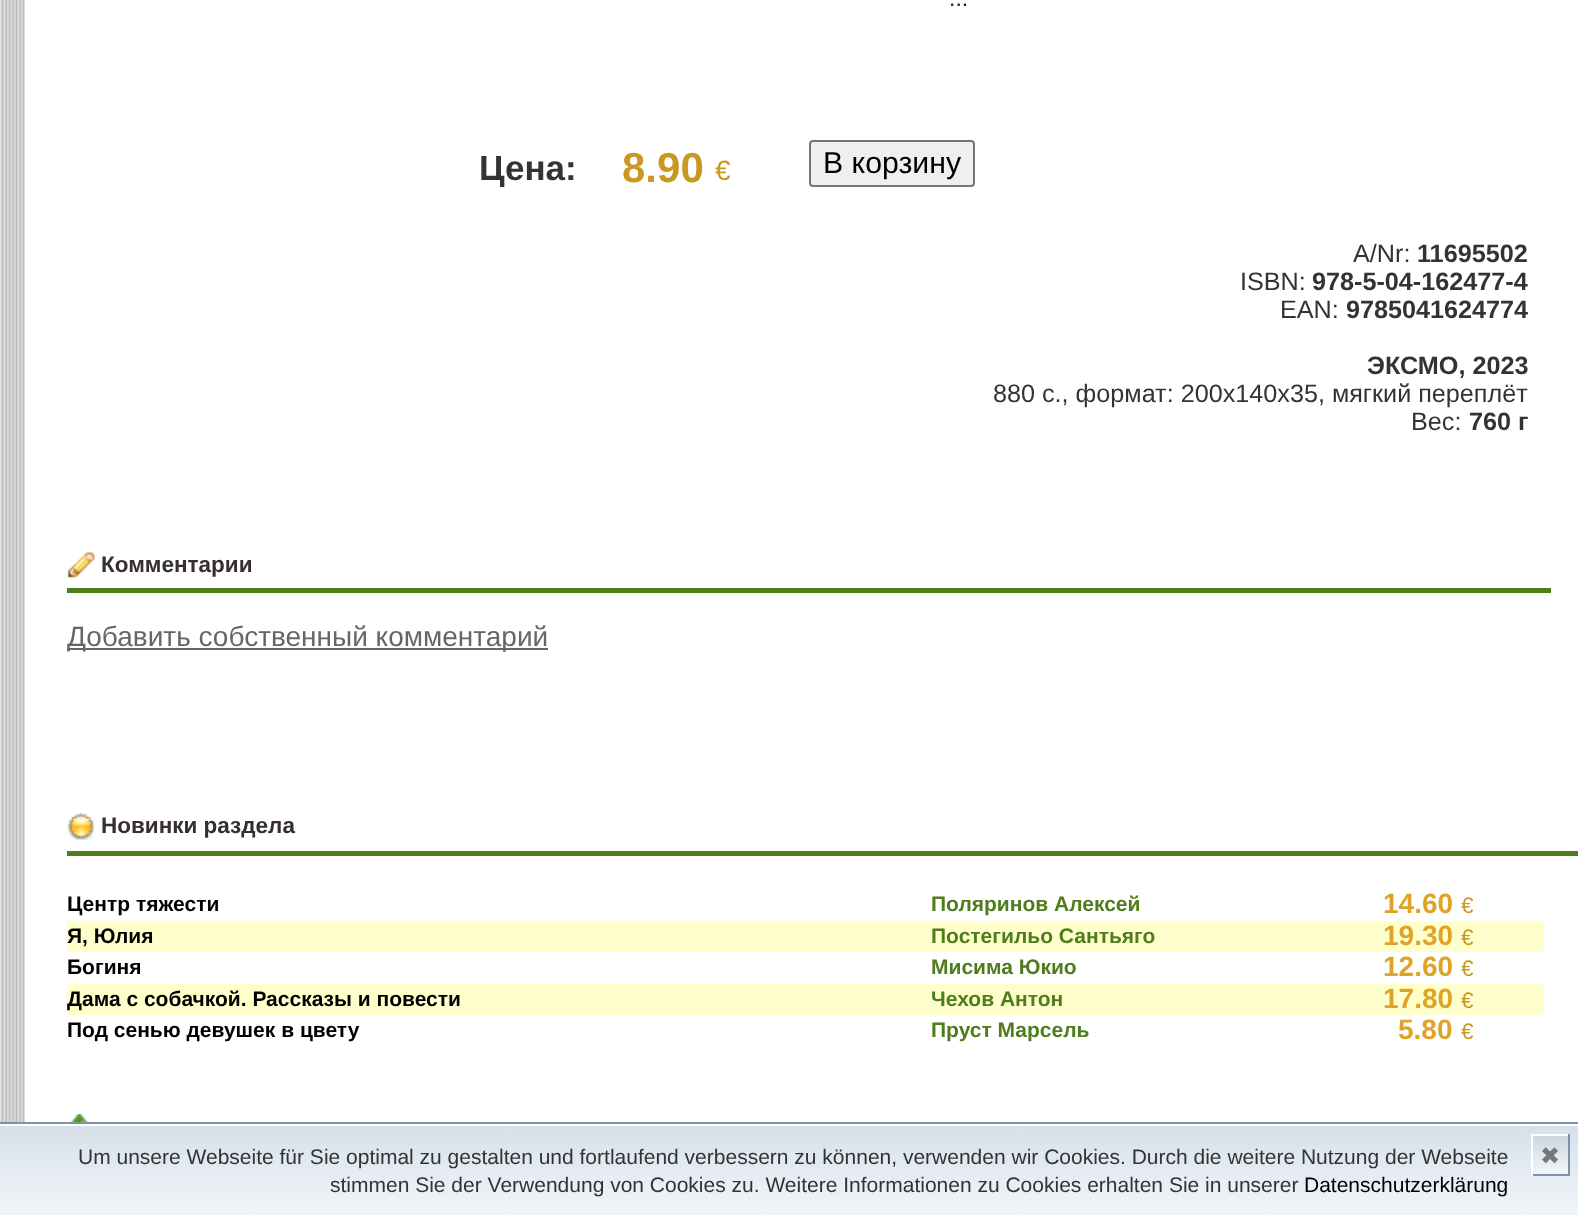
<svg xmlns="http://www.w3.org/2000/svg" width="1578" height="1215">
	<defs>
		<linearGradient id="g1" gradientUnits="userSpaceOnUse" x1="789" y1="1125" x2="789" y2="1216"><stop offset="0" stop-color="#D6E0EB" /><stop offset="1" stop-color="#F2F6F9" /></linearGradient>
		<linearGradient id="g2" gradientUnits="userSpaceOnUse" x1="1533" y1="1136" x2="1533" y2="1174"><stop offset="0" stop-color="#CED6DF" /><stop offset="1" stop-color="#F2F6F9" /></linearGradient>
	</defs>
	<rect width="100%" height="100%" fill="#FFFFFF" />
	<image x="0" y="0" width="25" height="1122" href="assets/img1.png" />
	<text x="949" y="6" font-family="Liberation Sans" font-size="23" fill="#222222">...</text>
	<text x="479" y="180" font-family="Liberation Sans" font-size="35" font-weight="700" fill="#333333">Цена:</text>
	<text x="622" y="182" font-family="Liberation Sans" font-size="42" font-weight="700" fill="#CA9820">8.90</text>
	<text x="715" y="180" font-family="Liberation Sans" font-size="28" fill="#CA9820">€</text>
	<rect x="810" y="141" width="164" height="45" rx="3" fill="#EFEFEF" stroke="#767676" stroke-width="2" />
	<text x="823" y="173" font-family="Liberation Sans" font-size="30.25" fill="#000000">В корзину</text>
	<text x="1353" y="262" font-family="Liberation Sans" font-size="25.2" fill="#333333">A/Nr:</text>
	<text x="1417" y="262" font-family="Liberation Sans" font-size="25.2" font-weight="700" fill="#333333">11695502</text>
	<text x="1240" y="290" font-family="Liberation Sans" font-size="25.2" fill="#333333">ISBN:</text>
	<text x="1312" y="290" font-family="Liberation Sans" font-size="25.2" font-weight="700" fill="#333333">978-5-04-162477-4</text>
	<text x="1280" y="318" font-family="Liberation Sans" font-size="25.2" fill="#333333">EAN:</text>
	<g font-family="Liberation Sans" font-size="25.2" font-weight="700" fill="#333333">
		<text x="1346" y="318">9785041624774</text>
		<text x="1367" y="374">ЭКСМО, 2023</text>
	</g>
	<g font-family="Liberation Sans" font-size="25.2" fill="#333333">
		<text x="993" y="402">880 с., формат: 200x140x35, мягкий переплёт</text>
		<text x="1411" y="430">Вес:</text>
	</g>
	<text x="1469" y="430" font-family="Liberation Sans" font-size="25.2" font-weight="700" fill="#333333">760 г</text>
	<image x="67" y="552" width="28" height="26" href="assets/img2.png" />
	<rect x="67" y="588" width="1484" height="5" fill="#4F7C1C" />
	<text x="101" y="572" font-family="Liberation Sans" font-size="22.5" font-weight="700" fill="#362F2D">Комментарии</text>
	<rect x="67" y="648" width="481" height="2" fill="#666666" />
	<text x="67" y="646" font-family="Liberation Sans" font-size="28" fill="#666666">Добавить собственный комментарий</text>
	<image x="66" y="813" width="29" height="27" href="assets/img3.png" />
	<rect x="67" y="851" width="1511" height="5" fill="#4F7C1C" />
	<text x="101" y="833" font-family="Liberation Sans" font-size="22.5" font-weight="700" fill="#362F2D">Новинки раздела</text>
	<text x="67" y="911" font-family="Liberation Sans" font-size="21" font-weight="700" fill="#000000">Центр тяжести</text>
	<text x="931" y="911" font-family="Liberation Sans" font-size="21" font-weight="700" fill="#4F7C1C">Поляринов Алексей</text>
	<text x="1383" y="913" font-family="Liberation Sans" font-size="28" font-weight="700" fill="#E0A327">14.60</text>
	<text x="1461" y="913" font-family="Liberation Sans" font-size="22.5" fill="#CA9820">€</text>
	<rect x="67" y="921" width="1477" height="31" fill="#FFFFCC" />
	<text x="67" y="943" font-family="Liberation Sans" font-size="21" font-weight="700" fill="#000000">Я, Юлия</text>
	<text x="931" y="943" font-family="Liberation Sans" font-size="21" font-weight="700" fill="#4F7C1C">Постегильо Сантьяго</text>
	<text x="1383" y="945" font-family="Liberation Sans" font-size="28" font-weight="700" fill="#E0A327">19.30</text>
	<text x="1461" y="945" font-family="Liberation Sans" font-size="22.5" fill="#CA9820">€</text>
	<text x="67" y="974" font-family="Liberation Sans" font-size="21" font-weight="700" fill="#000000">Богиня</text>
	<text x="931" y="974" font-family="Liberation Sans" font-size="21" font-weight="700" fill="#4F7C1C">Мисима Юкио</text>
	<text x="1383" y="976" font-family="Liberation Sans" font-size="28" font-weight="700" fill="#E0A327">12.60</text>
	<text x="1461" y="976" font-family="Liberation Sans" font-size="22.5" fill="#CA9820">€</text>
	<rect x="67" y="984" width="1477" height="31" fill="#FFFFCC" />
	<text x="67" y="1006" font-family="Liberation Sans" font-size="21" font-weight="700" fill="#000000">Дама с собачкой. Рассказы и повести</text>
	<text x="931" y="1006" font-family="Liberation Sans" font-size="21" font-weight="700" fill="#4F7C1C">Чехов Антон</text>
	<text x="1383" y="1008" font-family="Liberation Sans" font-size="28" font-weight="700" fill="#E0A327">17.80</text>
	<text x="1461" y="1008" font-family="Liberation Sans" font-size="22.5" fill="#CA9820">€</text>
	<text x="67" y="1037" font-family="Liberation Sans" font-size="21" font-weight="700" fill="#000000">Под сенью девушек в цвету</text>
	<text x="931" y="1037" font-family="Liberation Sans" font-size="21" font-weight="700" fill="#4F7C1C">Пруст Марсель</text>
	<text x="1398" y="1039" font-family="Liberation Sans" font-size="28" font-weight="700" fill="#E0A327">5.80</text>
	<text x="1461" y="1039" font-family="Liberation Sans" font-size="22.5" fill="#CA9820">€</text>
	<image x="69" y="1113" width="21" height="9" href="assets/img4.png" />
	<rect x="0" y="1126" width="1578" height="89" fill="url(#g1)" />
	<rect x="-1" y="1123" width="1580" height="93" fill="none" stroke="#7B92A9" stroke-width="2" />
	<text x="78" y="1164" font-family="Liberation Sans" font-size="21" fill="#333333">Um unsere Webseite für Sie optimal zu gestalten und fortlaufend verbessern zu können, verwenden wir Cookies. Durch die weitere Nutzung der Webseite</text>
	<rect x="1533" y="1136" width="35" height="38" fill="url(#g2)" />
	<rect x="1531" y="1134" width="39" height="2" fill="#FFFFFF" />
	<rect x="1568" y="1134" width="2" height="42" fill="#7B92A9" />
	<rect x="1531" y="1174" width="39" height="2" fill="#7B92A9" />
	<rect x="1531" y="1134" width="2" height="42" fill="#FFFFFF" />
	<text x="1540" y="1164" font-family="DejaVu Sans" font-size="24" fill="#777777">✖</text>
	<text x="330" y="1192" font-family="Liberation Sans" font-size="21" fill="#333333">stimmen Sie der Verwendung von Cookies zu. Weitere Informationen zu Cookies erhalten Sie in unserer</text>
	<text x="1304" y="1192" font-family="Liberation Sans" font-size="21" fill="#000000">Datenschutzerklärung</text>
</svg>
